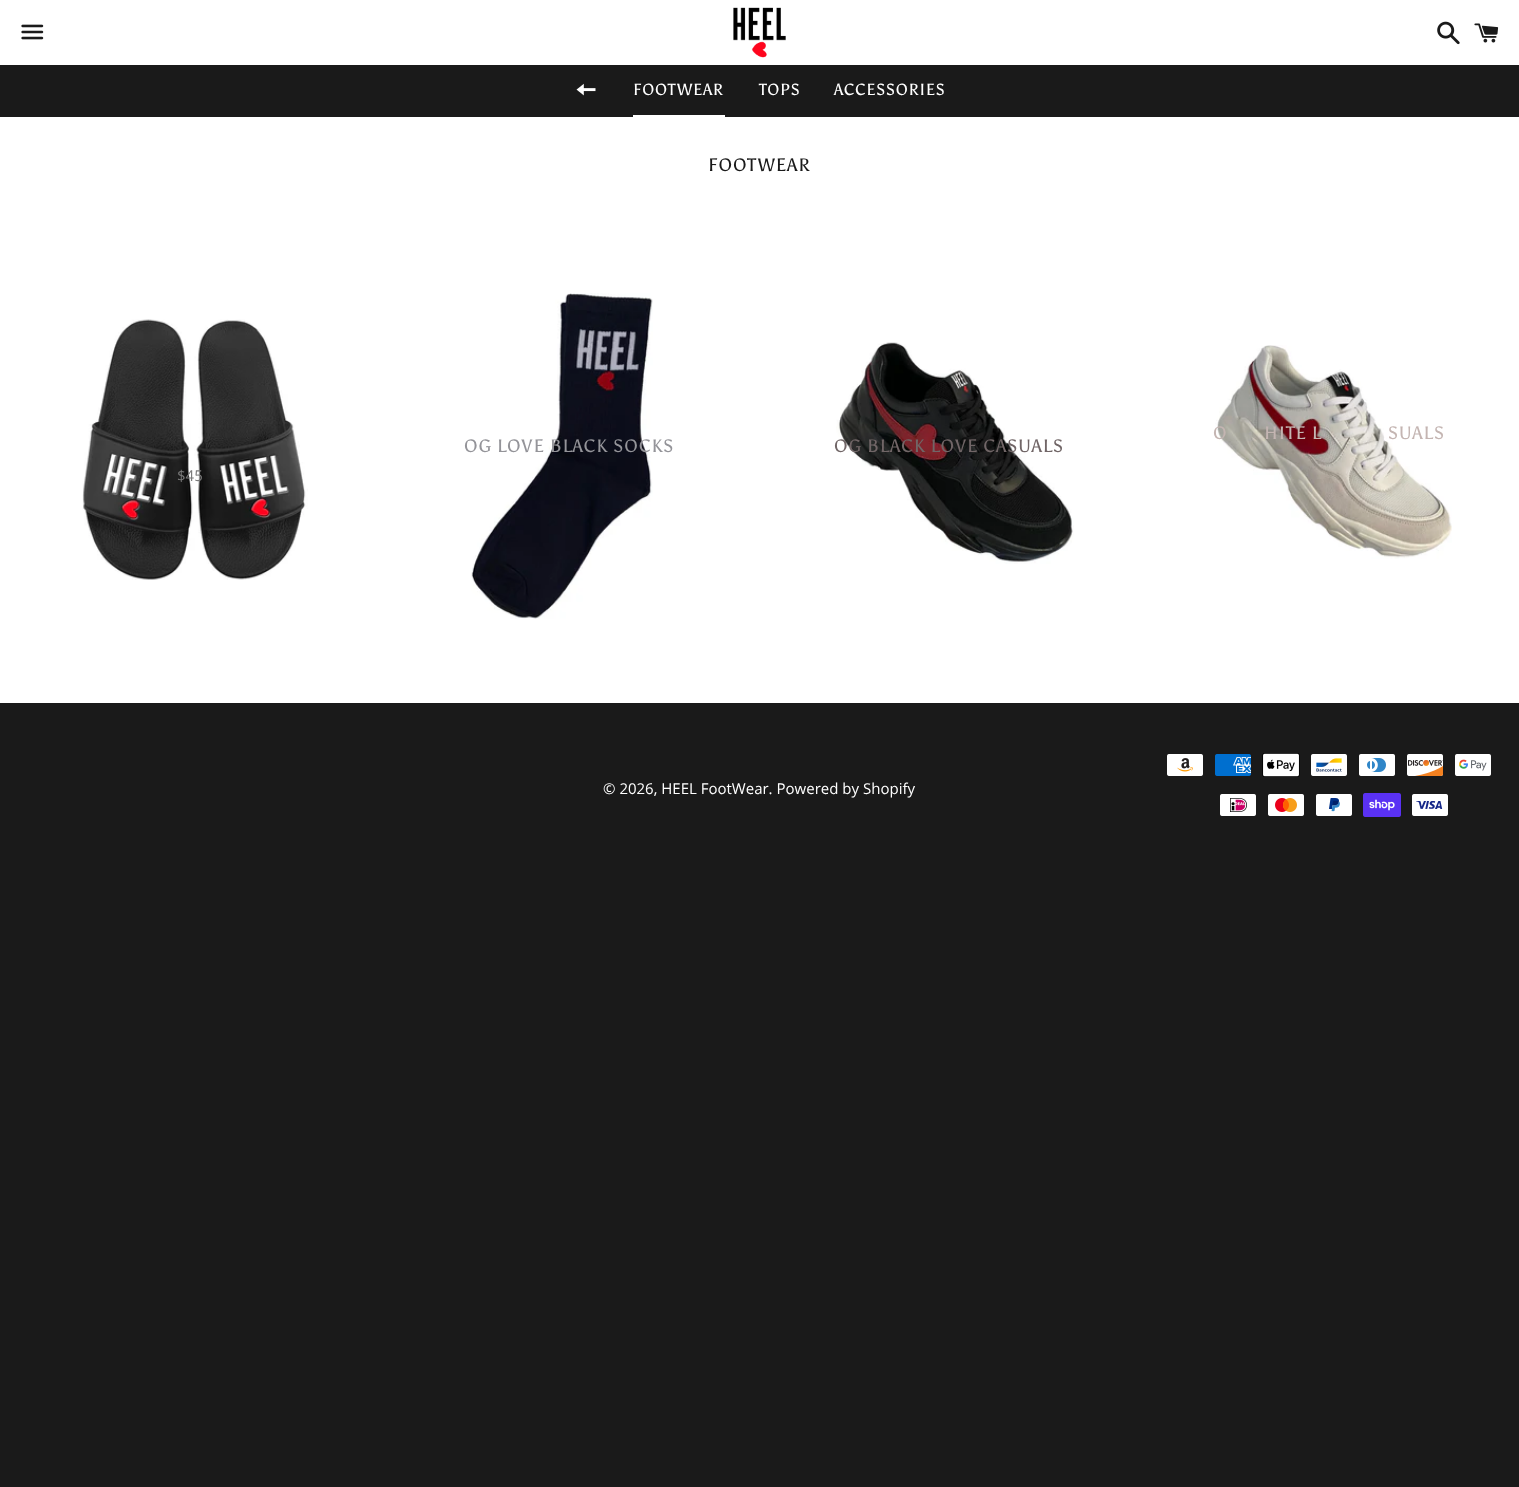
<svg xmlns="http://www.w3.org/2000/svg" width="1519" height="1487">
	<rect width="100%" height="100%" fill="#1A1A1A" />
	<rect x="0" y="0" width="1519" height="703" fill="#FFFFFF" />
	<image x="21" y="24" width="23" height="16" href="assets/img1.png" />
	<image x="733" y="7" width="53" height="51" href="assets/img2.png" />
	<image x="1437" y="21" width="23" height="24" href="assets/img3.png" />
	<image x="1474" y="23" width="25" height="20" href="assets/img4.png" />
	<rect x="0" y="65" width="1519" height="52" fill="#1A1A1A" />
	<image x="576" y="83" width="20" height="13" href="assets/img5.png" />
	<text x="633" y="95" font-family="Asul" font-size="16" letter-spacing="0.75" fill="#FFFFFF">FOOTWEAR</text>
	<rect x="633" y="115" width="92" height="2" fill="#FFFFFF" />
	<g font-family="Asul" font-size="16" letter-spacing="0.75" fill="#FFFFFF">
		<text x="759" y="95">TOPS</text>
		<text x="834" y="95">ACCESSORIES</text>
	</g>
	<text x="708" y="171" font-family="Asul" font-size="18" letter-spacing="0.9" fill="#1A1A1A">FOOTWEAR</text>
	<image x="1215" y="345" width="237" height="214" href="assets/img6.png" />
	<g font-family="Asul" font-size="18" letter-spacing="0.9" fill="#C4B5B2">
		<text x="1213" y="439">O</text>
		<text x="1264" y="439">HITE L</text>
		<text x="1388" y="439">SUALS</text>
	</g>
	<image x="471" y="293" width="182" height="326" href="assets/img7.png" />
	<text x="464" y="452" font-family="Asul" font-size="18" letter-spacing="0.9" fill="#949499">OG LOVE BLACK SOCKS</text>
	<image x="836" y="342" width="238" height="222" href="assets/img8.png" />
	<text x="834" y="452" font-family="Asul" font-size="18" letter-spacing="0.9" fill="#716667">OG BLACK LOVE CASUALS</text>
	<image x="82" y="319" width="226" height="261" href="assets/img9.png" />
	<text x="177" y="481" font-family="Open Sans" font-size="15" fill="#797979">$45</text>
	<text x="603" y="794" font-family="Open Sans" font-size="15" fill="#FFFFFF">© 2026, HEEL FootWear. Powered by Shopify</text>
	<image x="1167" y="754" width="36" height="22" href="assets/img10.png" />
	<image x="1215" y="754" width="36" height="22" href="assets/img11.png" />
	<image x="1262" y="753" width="38" height="24" href="assets/img12.png" />
	<image x="1311" y="754" width="36" height="22" href="assets/img13.png" />
	<image x="1359" y="754" width="36" height="22" href="assets/img14.png" />
	<image x="1407" y="754" width="36" height="22" href="assets/img15.png" />
	<image x="1455" y="754" width="36" height="22" href="assets/img16.png" />
	<image x="1220" y="794" width="36" height="22" href="assets/img17.png" />
	<image x="1268" y="794" width="36" height="22" href="assets/img18.png" />
	<image x="1316" y="794" width="36" height="22" href="assets/img19.png" />
	<image x="1363" y="793" width="38" height="24" href="assets/img20.png" />
	<image x="1412" y="794" width="36" height="22" href="assets/img21.png" />
</svg>
